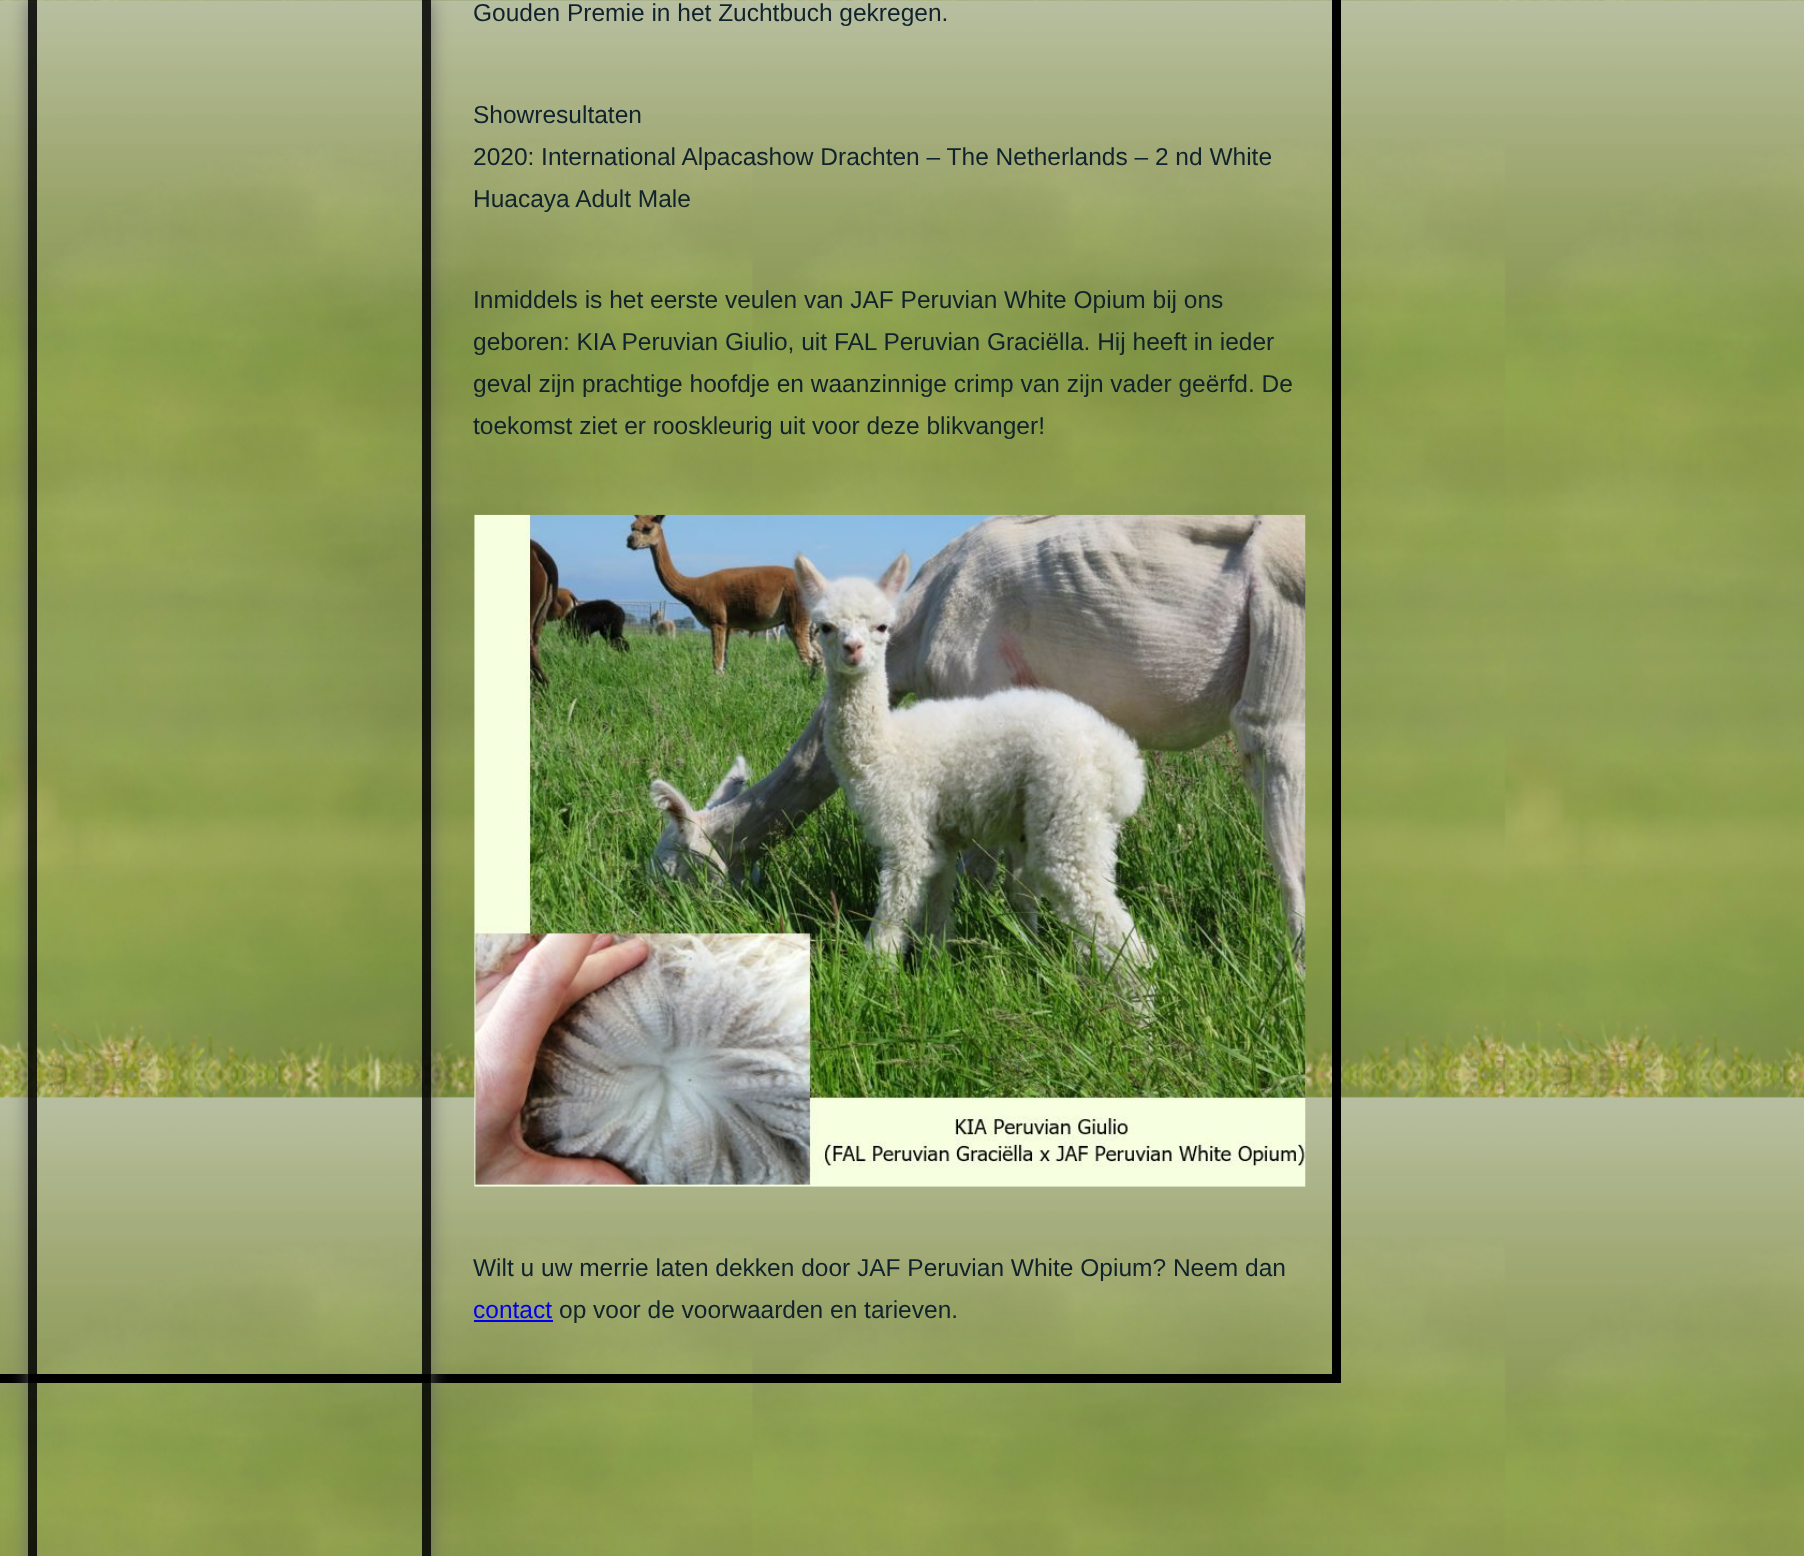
<svg xmlns="http://www.w3.org/2000/svg" width="1804" height="1556">
	<defs>
		<clipPath id="clip1"><path d="M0 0H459V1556H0ZM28 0H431V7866H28Z" clip-rule="evenodd" /></clipPath>
	</defs>
	<rect width="100%" height="100%" fill="#FFFFFF" />
	<image x="0" y="0" width="1804" height="1556" href="assets/img1.png" />
	<rect x="-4.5" y="-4.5" width="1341" height="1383" fill="none" stroke="#000000" stroke-width="9" />
	<g clip-path="url(#clip1)">
		<rect x="28" y="0" width="403" height="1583" fill="#666666" fill-opacity="0.85" filter="blur(9px)" />
	</g>
	<rect x="422" y="0" width="9" height="1556" fill="#000000" fill-opacity="0.85" />
	<rect x="28" y="0" width="9" height="1556" fill="#000000" fill-opacity="0.85" />
	<g font-family="Liberation Sans" font-size="24.5" fill="#10222B">
		<text x="473" y="21">Gouden Premie in het Zuchtbuch gekregen.</text>
		<text x="473" y="123">Showresultaten</text>
		<text x="473" y="165">2020: International Alpacashow Drachten – The Netherlands – 2 nd White</text>
		<text x="473" y="207">Huacaya Adult Male</text>
		<text x="473" y="308">Inmiddels is het eerste veulen van JAF Peruvian White Opium bij ons</text>
		<text x="473" y="350">geboren: KIA Peruvian Giulio, uit FAL Peruvian Graciëlla. Hij heeft in ieder</text>
		<text x="473" y="392">geval zijn prachtige hoofdje en waanzinnige crimp van zijn vader geërfd. De</text>
		<text x="473" y="434">toekomst ziet er rooskleurig uit voor deze blikvanger!</text>
	</g>
	<image x="474" y="514" width="832" height="673" href="assets/img2.png" />
	<text x="473" y="1276" font-family="Liberation Sans" font-size="24.5" fill="#10222B">Wilt u uw merrie laten dekken door JAF Peruvian White Opium? Neem dan</text>
	<text x="473" y="1318" font-family="Liberation Sans" font-size="24.5" fill="#0000EE">contact</text>
	<rect x="474" y="1320" width="79" height="2" fill="#0000EE" />
	<text x="559" y="1318" font-family="Liberation Sans" font-size="24.5" fill="#10222B">op voor de voorwaarden en tarieven.</text>
</svg>
